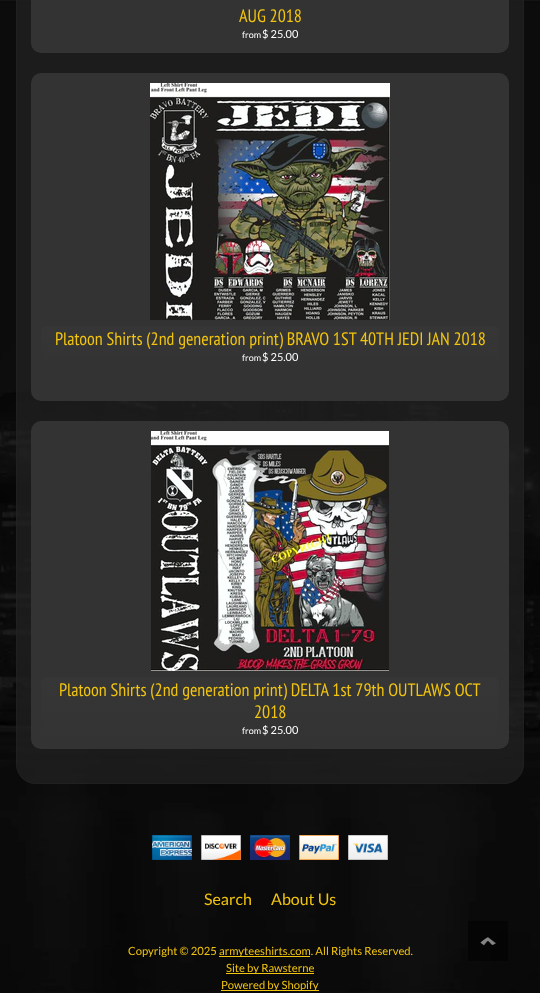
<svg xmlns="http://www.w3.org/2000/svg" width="540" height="993">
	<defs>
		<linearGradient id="g1" gradientUnits="userSpaceOnUse" x1="270" y1="326" x2="270" y2="366"><stop offset="0" stop-color="#363636" /><stop offset="1" stop-color="#333333" /></linearGradient>
		<linearGradient id="g2" gradientUnits="userSpaceOnUse" x1="270" y1="677" x2="270" y2="739"><stop offset="0" stop-color="#363636" /><stop offset="1" stop-color="#333333" /></linearGradient>
	</defs>
	<rect width="100%" height="100%" fill="#FFFFFF" />
	<image x="0" y="0" width="540" height="993" href="assets/img1.png" />
	<rect x="16" y="-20" width="508" height="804" rx="20" fill="#222222" fill-opacity="0.75" />
	<rect x="16.5" y="-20.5" width="507" height="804" rx="19.5" fill="none" stroke="#222222" stroke-opacity="0.7" />
	<rect x="31" y="-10" width="478" height="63" rx="10" fill="#333333" />
	<text x="239" y="22" font-family="PT Sans Narrow" font-size="18" fill="#F1C40F">AUG 2018</text>
	<text x="242" y="38" font-family="Lato" font-size="9" fill="#FFFFFF">from</text>
	<text x="262" y="38" font-family="Lato" font-size="11" fill="#FFFFFF">$ 25.00</text>
	<rect x="31" y="73" width="478" height="328" rx="10" fill="#333333" />
	<image x="150" y="83" width="240" height="237" href="assets/img2.png" />
	<rect x="41" y="326" width="458" height="40" rx="6" fill="url(#g1)" />
	<text x="55" y="345" font-family="PT Sans Narrow" font-size="18" fill="#F1C40F">Platoon Shirts (2nd generation print) BRAVO 1ST 40TH JEDI JAN 2018</text>
	<text x="242" y="361" font-family="Lato" font-size="9" fill="#FFFFFF">from</text>
	<text x="262" y="361" font-family="Lato" font-size="11" fill="#FFFFFF">$ 25.00</text>
	<rect x="31" y="421" width="478" height="328" rx="10" fill="#333333" />
	<image x="151" y="431" width="238" height="240" href="assets/img3.png" />
	<rect x="41" y="677" width="458" height="62" rx="6" fill="url(#g2)" />
	<g font-family="PT Sans Narrow" font-size="18" fill="#F1C40F">
		<text x="59" y="696">Platoon Shirts (2nd generation print) DELTA 1st 79th OUTLAWS OCT</text>
		<text x="254" y="718">2018</text>
	</g>
	<text x="242" y="734" font-family="Lato" font-size="9" fill="#FFFFFF">from</text>
	<text x="262" y="734" font-family="Lato" font-size="11" fill="#FFFFFF">$ 25.00</text>
	<image x="152" y="835" width="40" height="25" href="assets/img4.png" />
	<image x="201" y="835" width="40" height="25" href="assets/img5.png" />
	<image x="250" y="835" width="40" height="25" href="assets/img6.png" />
	<image x="299" y="835" width="40" height="25" href="assets/img7.png" />
	<image x="348" y="835" width="40" height="25" href="assets/img8.png" />
	<g font-family="Lato" font-size="16" fill="#F1C40F">
		<text x="204" y="905">Search</text>
		<text x="271" y="905">About Us</text>
	</g>
	<image x="468" y="921" width="40" height="40" href="assets/img9.png" />
	<text x="128" y="955" font-family="Lato" font-size="11.25" fill="#F1C40F">Copyright © 2025</text>
	<rect x="219" y="956" width="91" height="1" fill="#F1C40F" />
	<text x="219" y="955" font-family="Lato" font-size="11.25" fill="#F1C40F">armyteeshirts.com. All Rights Reserved.</text>
	<rect x="226" y="973" width="88" height="1" fill="#F1C40F" />
	<text x="226" y="972" font-family="Lato" font-size="11.25" fill="#F1C40F">Site by Rawsterne</text>
	<rect x="221" y="990" width="98" height="1" fill="#F1C40F" />
	<text x="221" y="989" font-family="Lato" font-size="11.25" fill="#F1C40F">Powered by Shopify</text>
</svg>
